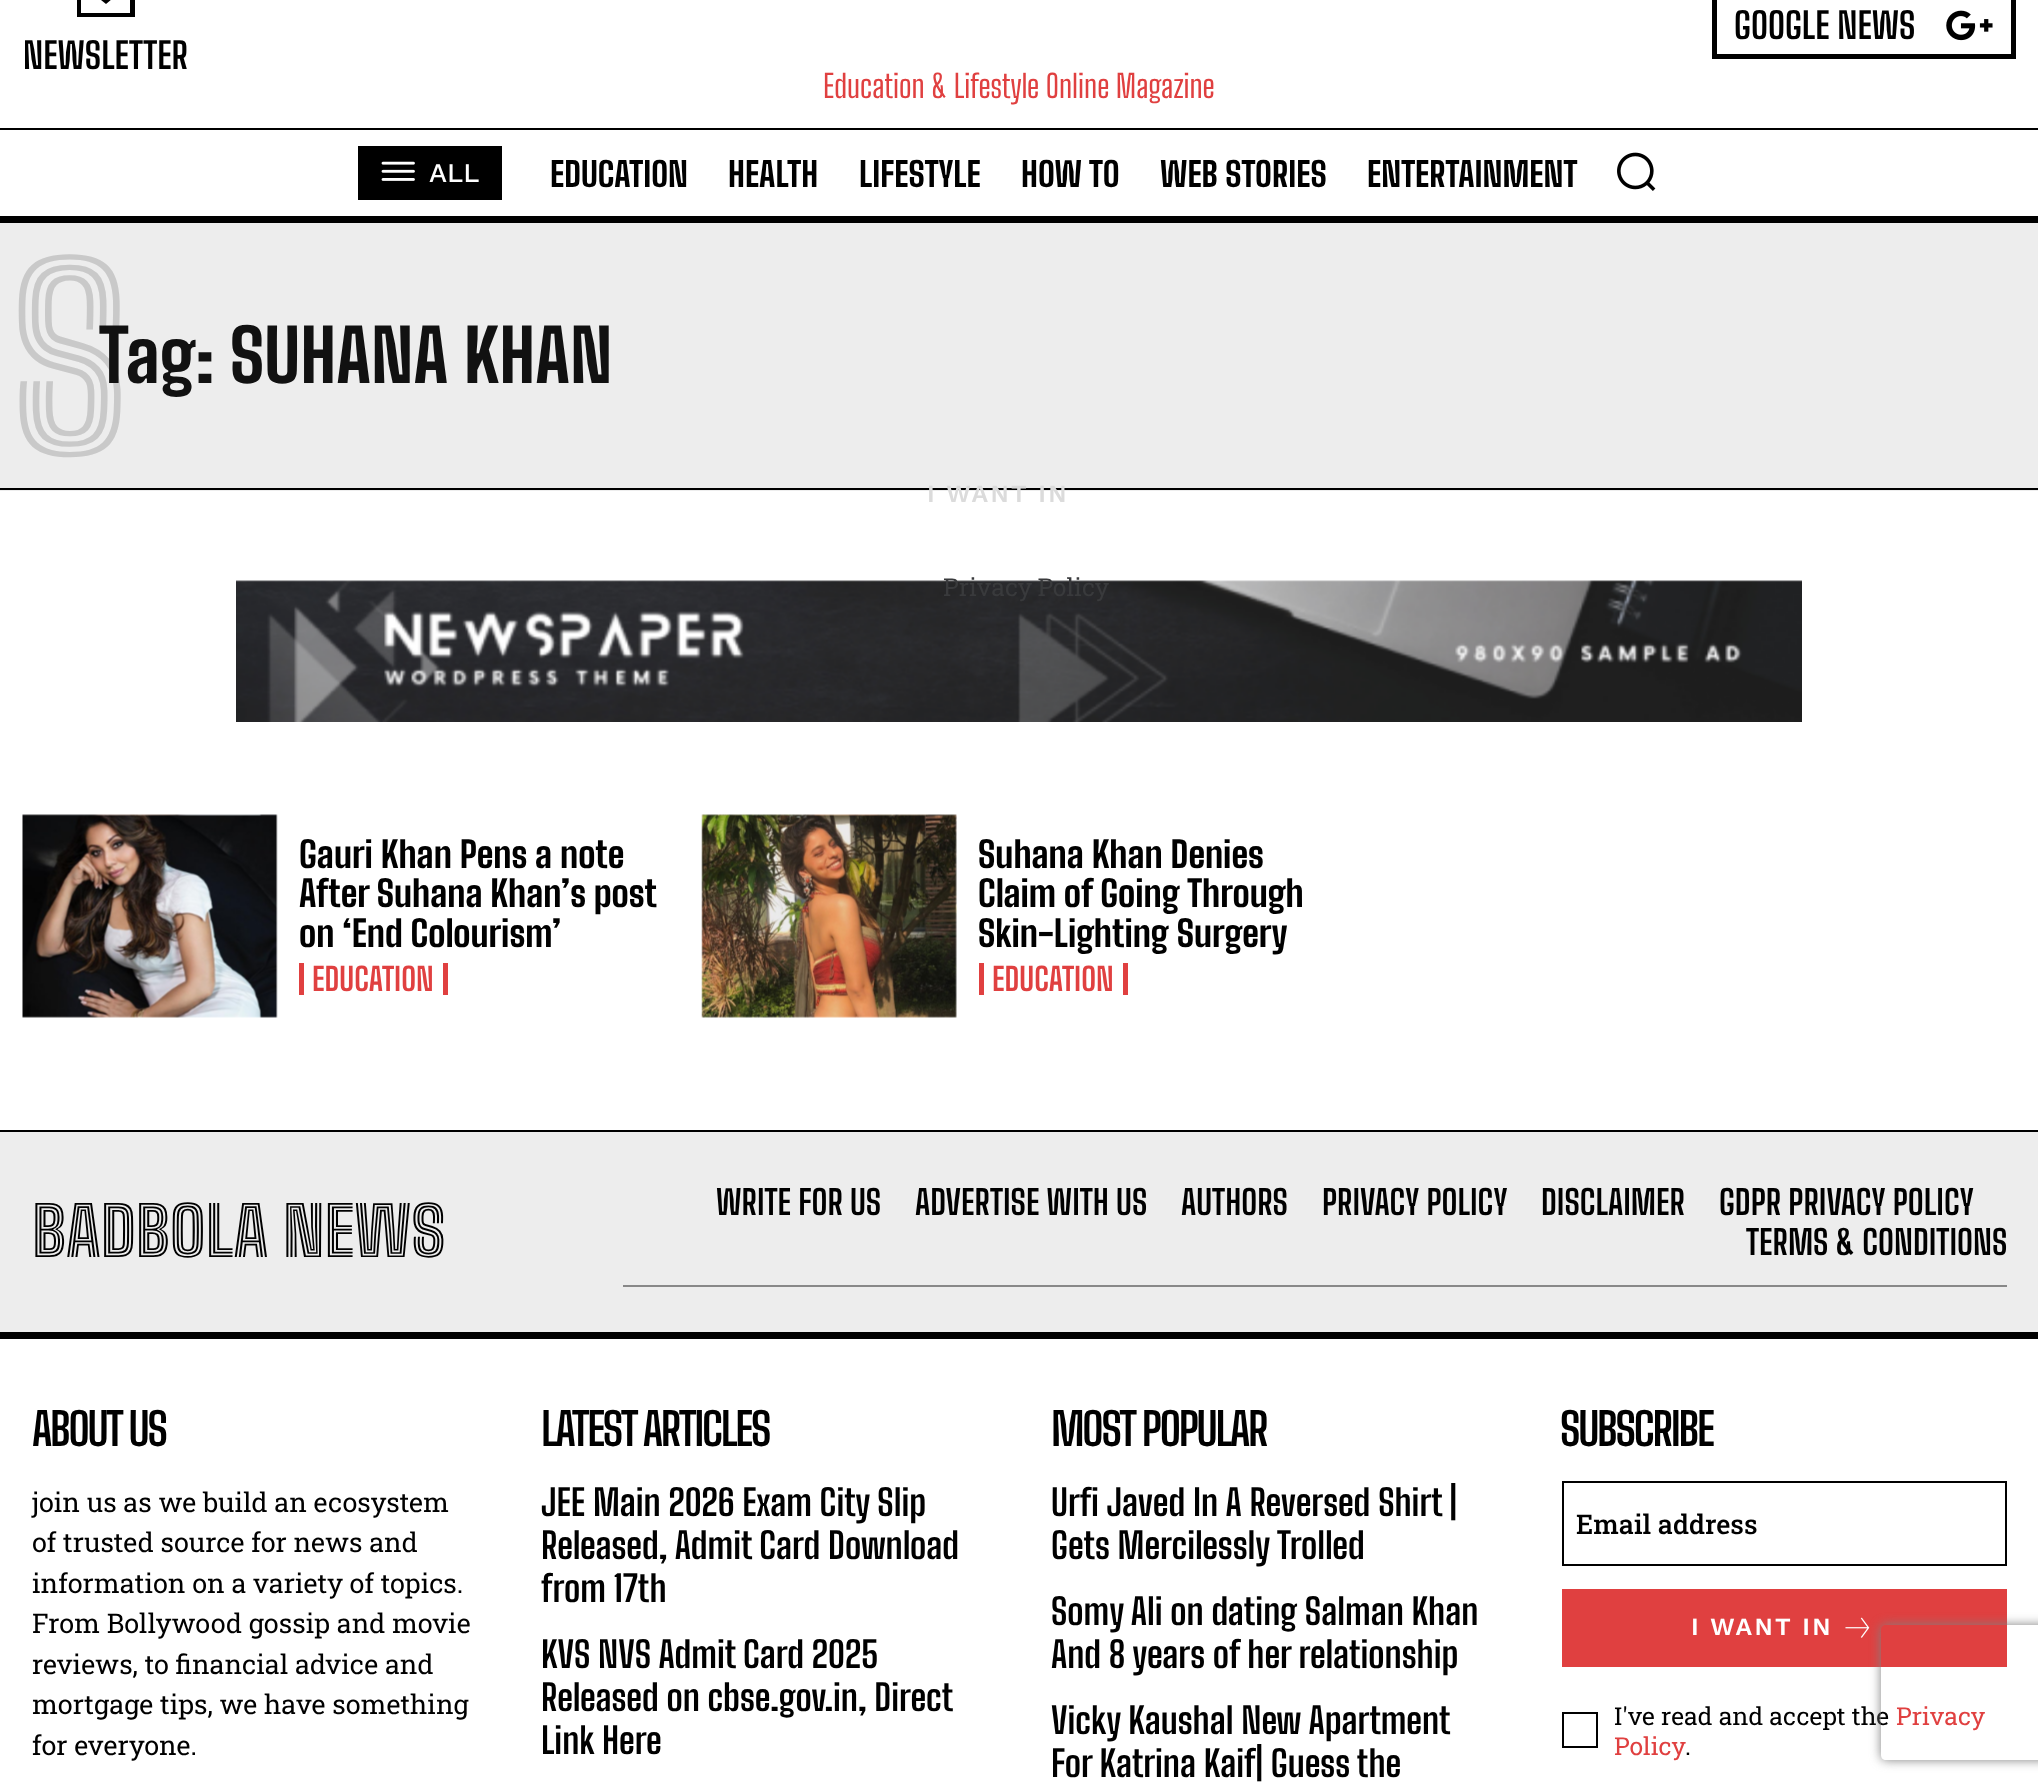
<svg xmlns="http://www.w3.org/2000/svg" width="2038" height="1791">
	<defs>
		<clipPath id="clip1"><rect x="77" y="0" width="58" height="25" /></clipPath>
		<clipPath id="clip2"><path d="M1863 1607H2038V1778H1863ZM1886 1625H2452C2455 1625 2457 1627 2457 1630V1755C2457 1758 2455 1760 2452 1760H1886C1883 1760 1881 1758 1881 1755V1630C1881 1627 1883 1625 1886 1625Z" clip-rule="evenodd" /></clipPath>
	</defs>
	<rect width="100%" height="100%" fill="#FFFFFF" />
	<image x="1946" y="10" width="47" height="31" href="assets/img1.png" />
	<rect x="1714.5" y="-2.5" width="299" height="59" fill="none" stroke="#000000" stroke-width="5" />
	<text x="1734" y="39" font-family="Big Shoulders Text" font-size="36" font-weight="700" fill="#000000">GOOGLE NEWS</text>
	<g clip-path="url(#clip1)">
		<path d="M76-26V17H135V-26ZM129-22L106-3L83-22ZM81 13V-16L106 4L130-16V13Z" fill="#000000" />
	</g>
	<text x="23" y="69" font-family="Big Shoulders Text" font-size="36" font-weight="700" fill="#000000">NEWSLETTER</text>
	<text x="823" y="98" font-family="Big Shoulders Text" font-size="31.5" fill="#E04040">Education &amp; Lifestyle Online Magazine</text>
	<rect x="0" y="128" width="2038" height="2" fill="#000000" />
	<rect x="0" y="216" width="2038" height="7" fill="#000000" />
	<rect x="358" y="146" width="144" height="54" fill="#000000" />
	<image x="381" y="161" width="34" height="20" href="assets/img2.png" />
	<text x="429" y="182" font-family="Work Sans" font-size="27" font-weight="500" fill="#FFFFFF">ALL</text>
	<g font-family="Big Shoulders Text" font-size="33.75" font-weight="800" fill="#000000">
		<text x="550" y="187">EDUCATION</text>
		<text x="728" y="187">HEALTH</text>
		<text x="859" y="187">LIFESTYLE</text>
		<text x="1021" y="187">HOW TO</text>
		<text x="1160" y="187">WEB STORIES</text>
		<text x="1367" y="187">ENTERTAINMENT</text>
	</g>
	<image x="1617" y="152" width="39" height="39" href="assets/img3.png" />
	<rect x="0" y="223" width="2038" height="268" fill="#EDEDED" />
	<rect x="0" y="488" width="2038" height="2" fill="#000000" />
	<text x="10" y="455" font-family="Big Shoulders Inline Text" font-size="248" font-weight="800" fill="#C9C9C9">S</text>
	<text x="99" y="383" font-family="Big Shoulders Text" font-size="72" font-weight="800" fill="#111111">Tag: SUHANA KHAN</text>
	<image x="236" y="580" width="1566" height="142" href="assets/img4.png" />
	<image x="22" y="814" width="256" height="204" href="assets/img5.png" />
	<g font-family="Big Shoulders Text" font-size="36" font-weight="800" fill="#000000">
		<text x="299" y="868">Gauri Khan Pens a note</text>
		<text x="299" y="907">After Suhana Khan’s post</text>
		<text x="299" y="947">on ‘End Colourism’</text>
	</g>
	<rect x="443" y="963" width="5" height="32" fill="#E04040" />
	<rect x="299" y="963" width="5" height="32" fill="#E04040" />
	<text x="312" y="991" font-family="Big Shoulders Text" font-size="31.5" font-weight="700" fill="#E04040">EDUCATION</text>
	<image x="701" y="814" width="256" height="204" href="assets/img6.png" />
	<g font-family="Big Shoulders Text" font-size="36" font-weight="800" fill="#000000">
		<text x="978" y="868">Suhana Khan Denies</text>
		<text x="978" y="907">Claim of Going Through</text>
		<text x="978" y="947">Skin-Lighting Surgery</text>
	</g>
	<rect x="1123" y="963" width="5" height="32" fill="#E04040" />
	<rect x="979" y="963" width="5" height="32" fill="#E04040" />
	<text x="992" y="991" font-family="Big Shoulders Text" font-size="31.5" font-weight="700" fill="#E04040">EDUCATION</text>
	<rect x="0" y="1132" width="2038" height="200" fill="#EDEDED" />
	<rect x="0" y="1130" width="2038" height="2" fill="#000000" />
	<rect x="0" y="1332" width="2038" height="7" fill="#000000" />
	<text x="32" y="1257" font-family="Big Shoulders Inline Text" font-size="67.5" font-weight="900" fill="#000000">BADBOLA NEWS</text>
	<rect x="623" y="1285" width="1384" height="2" fill="#888888" />
	<g font-family="Big Shoulders Text" font-size="33.75" font-weight="700" fill="#000000">
		<text x="716" y="1215">WRITE FOR US</text>
		<text x="915" y="1215">ADVERTISE WITH US</text>
		<text x="1181" y="1215">AUTHORS</text>
		<text x="1322" y="1215">PRIVACY POLICY</text>
		<text x="1541" y="1215">DISCLAIMER</text>
		<text x="1719" y="1215">GDPR PRIVACY POLICY</text>
		<text x="1746" y="1255">TERMS &amp; CONDITIONS</text>
	</g>
	<text x="32" y="1446" font-family="Big Shoulders Text" font-size="45" font-weight="700" letter-spacing="-2.25" fill="#000000">ABOUT US</text>
	<g font-family="Roboto Slab" font-size="27" fill="#000000">
		<text x="32" y="1512">join us as we build an ecosystem</text>
		<text x="32" y="1552">of trusted source for news and</text>
		<text x="32" y="1593">information on a variety of topics.</text>
		<text x="32" y="1633">From Bollywood gossip and movie</text>
		<text x="32" y="1674">reviews, to financial advice and</text>
		<text x="32" y="1714">mortgage tips, we have something</text>
		<text x="32" y="1755">for everyone.</text>
	</g>
	<text x="541" y="1446" font-family="Big Shoulders Text" font-size="45" font-weight="700" letter-spacing="-2.25" fill="#000000">LATEST ARTICLES</text>
	<g font-family="Big Shoulders Text" font-size="36" font-weight="700" fill="#000000">
		<text x="541" y="1516">JEE Main 2026 Exam City Slip</text>
		<text x="541" y="1559">Released, Admit Card Download</text>
		<text x="541" y="1602">from 17th</text>
		<text x="541" y="1668">KVS NVS Admit Card 2025</text>
		<text x="541" y="1711">Released on cbse.gov.in, Direct</text>
		<text x="541" y="1754">Link Here</text>
	</g>
	<text x="1051" y="1446" font-family="Big Shoulders Text" font-size="45" font-weight="700" letter-spacing="-2.25" fill="#000000">MOST POPULAR</text>
	<g font-family="Big Shoulders Text" font-size="36" font-weight="700" fill="#000000">
		<text x="1051" y="1516">Urfi Javed In A Reversed Shirt |</text>
		<text x="1051" y="1559">Gets Mercilessly Trolled</text>
		<text x="1051" y="1625">Somy Ali on dating Salman Khan</text>
		<text x="1051" y="1668">And 8 years of her relationship</text>
		<text x="1051" y="1734">Vicky Kaushal New Apartment</text>
		<text x="1051" y="1777">For Katrina Kaif| Guess the</text>
	</g>
	<text x="1560" y="1446" font-family="Big Shoulders Text" font-size="45" font-weight="700" letter-spacing="-2.25" fill="#000000">SUBSCRIBE</text>
	<rect x="1563" y="1482" width="443" height="83" fill="none" stroke="#000000" stroke-width="2" />
	<text x="1576" y="1534" font-family="Roboto Slab" font-size="27" font-weight="500" fill="#000000">Email address</text>
	<rect x="1562" y="1589" width="445" height="78" fill="#E04040" />
	<text x="1691" y="1635" font-family="Work Sans" font-size="24.75" font-weight="600" letter-spacing="2.25" fill="#FFFFFF">I WANT IN</text>
	<image x="1845" y="1617" width="25" height="21" href="assets/img7.png" />
	<rect x="1563" y="1713" width="34" height="34" fill="none" stroke="#000000" stroke-width="2" />
	<text x="1614" y="1725" font-family="Roboto Slab" font-size="24.75" fill="#000000">I've read and accept the</text>
	<g font-family="Roboto Slab" font-size="24.75" fill="#E04040">
		<text x="1896" y="1725">Privacy</text>
		<text x="1614" y="1755">Policy</text>
	</g>
	<text x="1685" y="1755" font-family="Roboto Slab" font-size="24.75" fill="#000000">.</text>
	<text x="927" y="502" font-family="Work Sans" font-size="24.75" font-weight="600" letter-spacing="2.25" fill="#DBDBDB">I WANT IN</text>
	<text x="943" y="596" word-spacing="-1" font-family="Roboto Slab" font-size="24.75" fill="#393A3C">Privacy Policy</text>
	<g clip-path="url(#clip2)">
		<rect x="1881" y="1625" width="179" height="135" rx="5" fill="#808080" filter="blur(5.5px)" />
	</g>
</svg>
